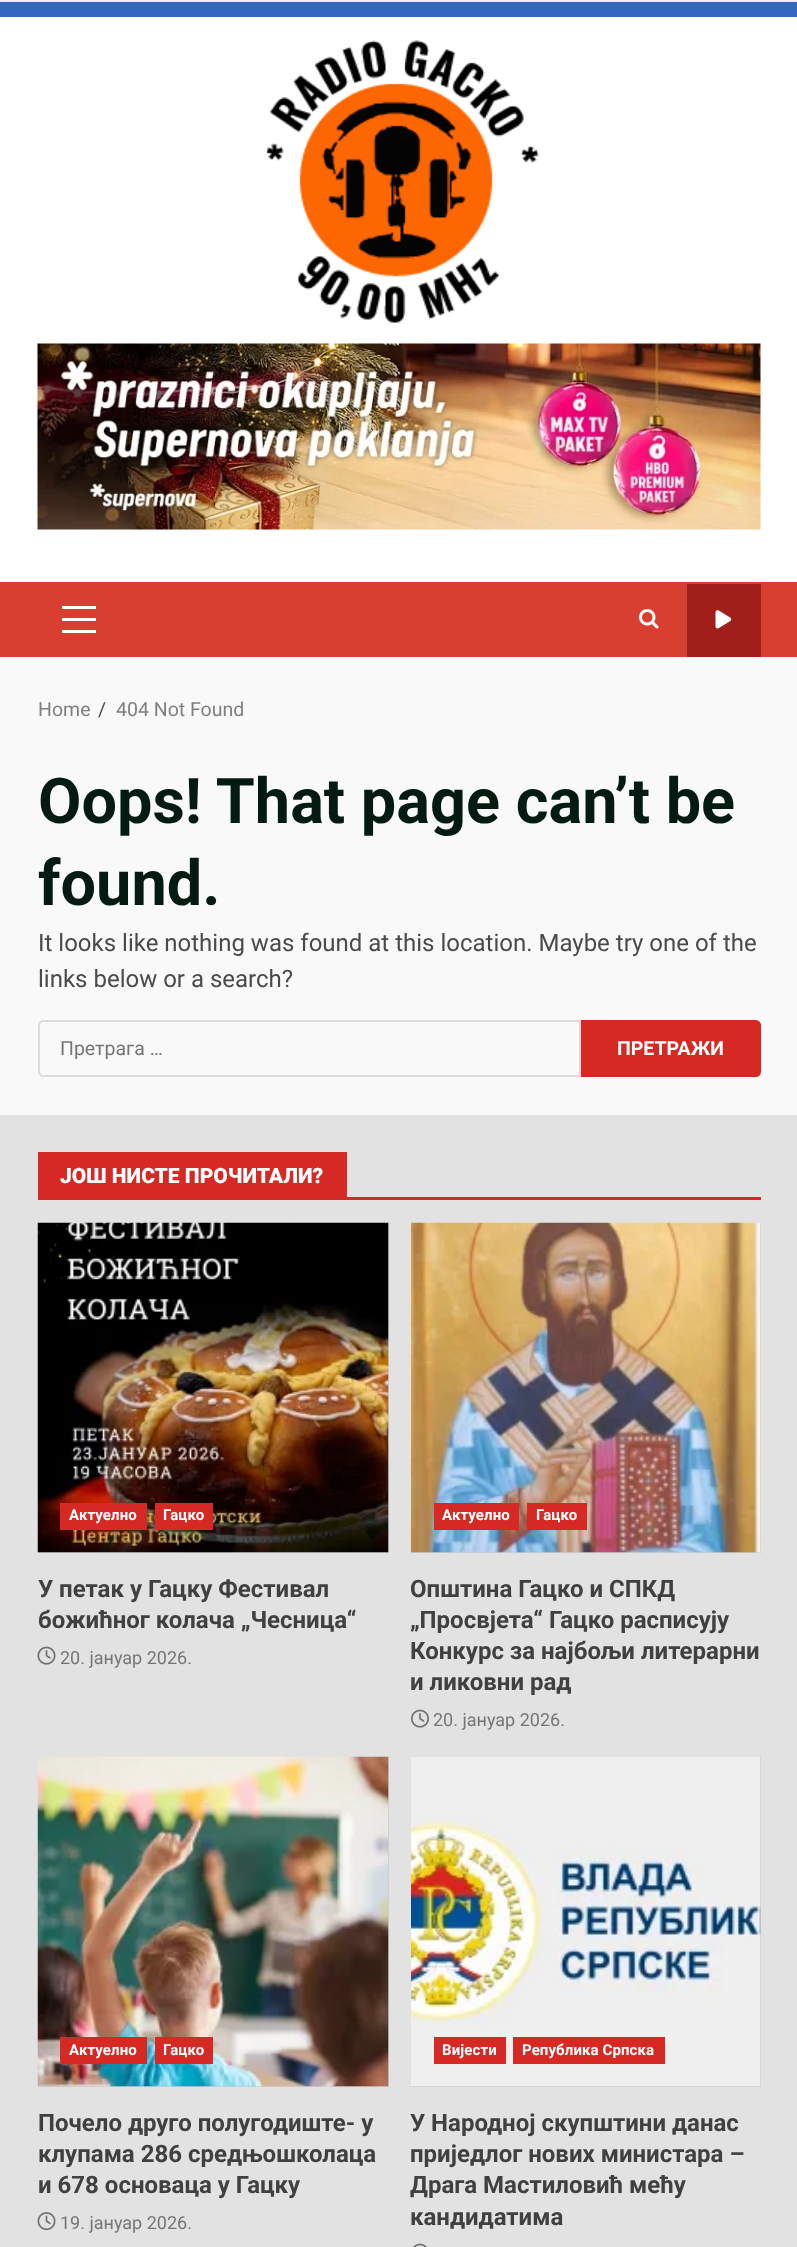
<svg xmlns="http://www.w3.org/2000/svg" width="797" height="2247">
	<rect width="100%" height="100%" fill="#EEEEEE" />
	<rect x="0" y="657" width="797" height="458" fill="#F9F9F9" />
	<rect x="0" y="2" width="797" height="15" fill="#3468C0" />
	<rect x="0" y="17" width="797" height="565" fill="#FFFFFF" />
	<image x="266" y="40" width="273" height="283" href="assets/img1.png" />
	<image x="37" y="343" width="724" height="187" href="assets/img2.png" />
	<rect x="0" y="582" width="797" height="75" fill="#D83F31" />
	<rect x="62" y="618" width="34" height="3" fill="#FFFFFF" />
	<rect x="62" y="606" width="34" height="3" fill="#FFFFFF" />
	<rect x="62" y="630" width="34" height="3" fill="#FFFFFF" />
	<image x="639" y="609" width="20" height="20" href="assets/img3.png" />
	<rect x="687" y="584" width="74" height="73" fill="#A11F1B" />
	<image x="715" y="610" width="17" height="19" href="assets/img4.png" />
	<text x="38" y="716" font-family="Roboto" font-size="19.5" fill="#7F7F7F">Home</text>
	<text x="98" y="716" font-family="Roboto" font-size="19.5" fill="#4A4A4A">/</text>
	<text x="116" y="716" font-family="Roboto" font-size="19.5" fill="#7F7F7F">404 Not Found</text>
	<g font-family="Roboto" font-size="63" font-weight="700" fill="#031B11">
		<text x="38" y="823">Oops! That page can’t be</text>
		<text x="38" y="905">found.</text>
	</g>
	<g font-family="Roboto" font-size="24" fill="#4A4A4A">
		<text x="38" y="951">It looks like nothing was found at this location. Maybe try one of the</text>
		<text x="38" y="987">links below or a search?</text>
	</g>
	<path d="M43 1021H580V1076H43C41 1076 39 1074 39 1072V1025C39 1023 41 1021 43 1021Z" fill="none" stroke="#DCDCDC" stroke-width="2" />
	<text x="60" y="1055" font-family="Roboto" font-size="19.5" fill="#757575">Претрага …</text>
	<path d="M582 1021H756C758 1021 760 1023 760 1025V1072C760 1074 758 1076 756 1076H582Z" fill="#D72924" stroke="#D72924" stroke-width="2" />
	<text x="617" y="1055" font-family="Roboto" font-size="19.5" font-weight="700" fill="#FFFFFF">ПРЕТРАЖИ</text>
	<rect x="0" y="1115" width="797" height="1132" fill="#E2E2E2" />
	<rect x="38" y="1197" width="723" height="3" fill="#D72924" />
	<rect x="38" y="1152" width="309" height="45" fill="#D72924" />
	<text x="60" y="1183" font-family="Roboto" font-size="21" font-weight="900" fill="#FFFFFF">ЈОШ НИСТЕ ПРОЧИТАЛИ?</text>
	<rect x="38" y="1223" width="351" height="330" fill="#CCCCCC" />
	<image x="37" y="1222" width="352" height="331" href="assets/img5.png" />
	<rect x="60" y="1503" width="87" height="27" fill="#D72924" />
	<text x="69" y="1520" font-family="Roboto" font-size="15" font-weight="700" letter-spacing="0.1" fill="#FFFFFF">Актуелно</text>
	<rect x="155" y="1503" width="58" height="27" fill="#D72924" />
	<text x="163" y="1520" font-family="Roboto" font-size="15" font-weight="700" letter-spacing="0.1" fill="#FFFFFF">Гацко</text>
	<g font-family="Roboto" font-size="24" font-weight="700" fill="#404040">
		<text x="38" y="1597">У петак у Гацку Фестивал</text>
		<text x="38" y="1628">божићног колача „Чесница“</text>
	</g>
	<image x="37" y="1646" width="19" height="19" href="assets/img6.png" />
	<text x="60" y="1664" font-family="Roboto" font-size="18" fill="#757575">20. јануар 2026.</text>
	<rect x="411" y="1223" width="350" height="330" fill="#CCCCCC" />
	<image x="411" y="1222" width="350" height="331" href="assets/img7.png" />
	<rect x="434" y="1503" width="85" height="27" fill="#D72924" />
	<text x="442" y="1520" font-family="Roboto" font-size="15" font-weight="700" letter-spacing="0.1" fill="#FFFFFF">Актуелно</text>
	<rect x="527" y="1503" width="60" height="27" fill="#D72924" />
	<text x="536" y="1520" font-family="Roboto" font-size="15" font-weight="700" letter-spacing="0.1" fill="#FFFFFF">Гацко</text>
	<g font-family="Roboto" font-size="24" font-weight="700" fill="#404040">
		<text x="410" y="1597">Општина Гацко и СПКД</text>
		<text x="410" y="1628">„Просвјета“ Гацко расписују</text>
		<text x="410" y="1659">Конкурс за најбољи литерарни</text>
		<text x="410" y="1690">и ликовни рад</text>
	</g>
	<image x="411" y="1709" width="18" height="19" href="assets/img8.png" />
	<text x="433" y="1726" font-family="Roboto" font-size="18" fill="#757575">20. јануар 2026.</text>
	<rect x="38" y="1757" width="351" height="330" fill="#CCCCCC" />
	<image x="37" y="1756" width="352" height="331" href="assets/img9.png" />
	<rect x="60" y="2037" width="87" height="27" fill="#D72924" />
	<text x="69" y="2055" font-family="Roboto" font-size="15" font-weight="700" letter-spacing="0.1" fill="#FFFFFF">Актуелно</text>
	<rect x="155" y="2037" width="58" height="27" fill="#D72924" />
	<text x="163" y="2055" font-family="Roboto" font-size="15" font-weight="700" letter-spacing="0.1" fill="#FFFFFF">Гацко</text>
	<g font-family="Roboto" font-size="24" font-weight="700" fill="#404040">
		<text x="38" y="2131">Почело друго полугодиште- у</text>
		<text x="38" y="2162">клупама 286 средњошколаца</text>
		<text x="38" y="2193">и 678 основаца у Гацку</text>
	</g>
	<image x="37" y="2212" width="19" height="19" href="assets/img10.png" />
	<text x="60" y="2229" font-family="Roboto" font-size="18" fill="#757575">19. јануар 2026.</text>
	<rect x="411" y="1757" width="350" height="330" fill="#CCCCCC" />
	<image x="411" y="1757" width="350" height="330" href="assets/img11.png" />
	<rect x="434" y="2037" width="72" height="27" fill="#D72924" />
	<text x="442" y="2055" font-family="Roboto" font-size="15" font-weight="700" letter-spacing="0.1" fill="#FFFFFF">Вијести</text>
	<rect x="513" y="2037" width="152" height="27" fill="#D72924" />
	<text x="522" y="2055" font-family="Roboto" font-size="15" font-weight="700" letter-spacing="0.1" fill="#FFFFFF">Република Српска</text>
	<g font-family="Roboto" font-size="24" font-weight="700" fill="#404040">
		<text x="410" y="2131">У Народној скупштини данас</text>
		<text x="410" y="2162">приједлог нових министара –</text>
		<text x="410" y="2193">Драга Мастиловић мећу</text>
		<text x="410" y="2225">кандидатима</text>
	</g>
	<image x="413" y="2243" width="14" height="4" href="assets/img12.png" />
</svg>
